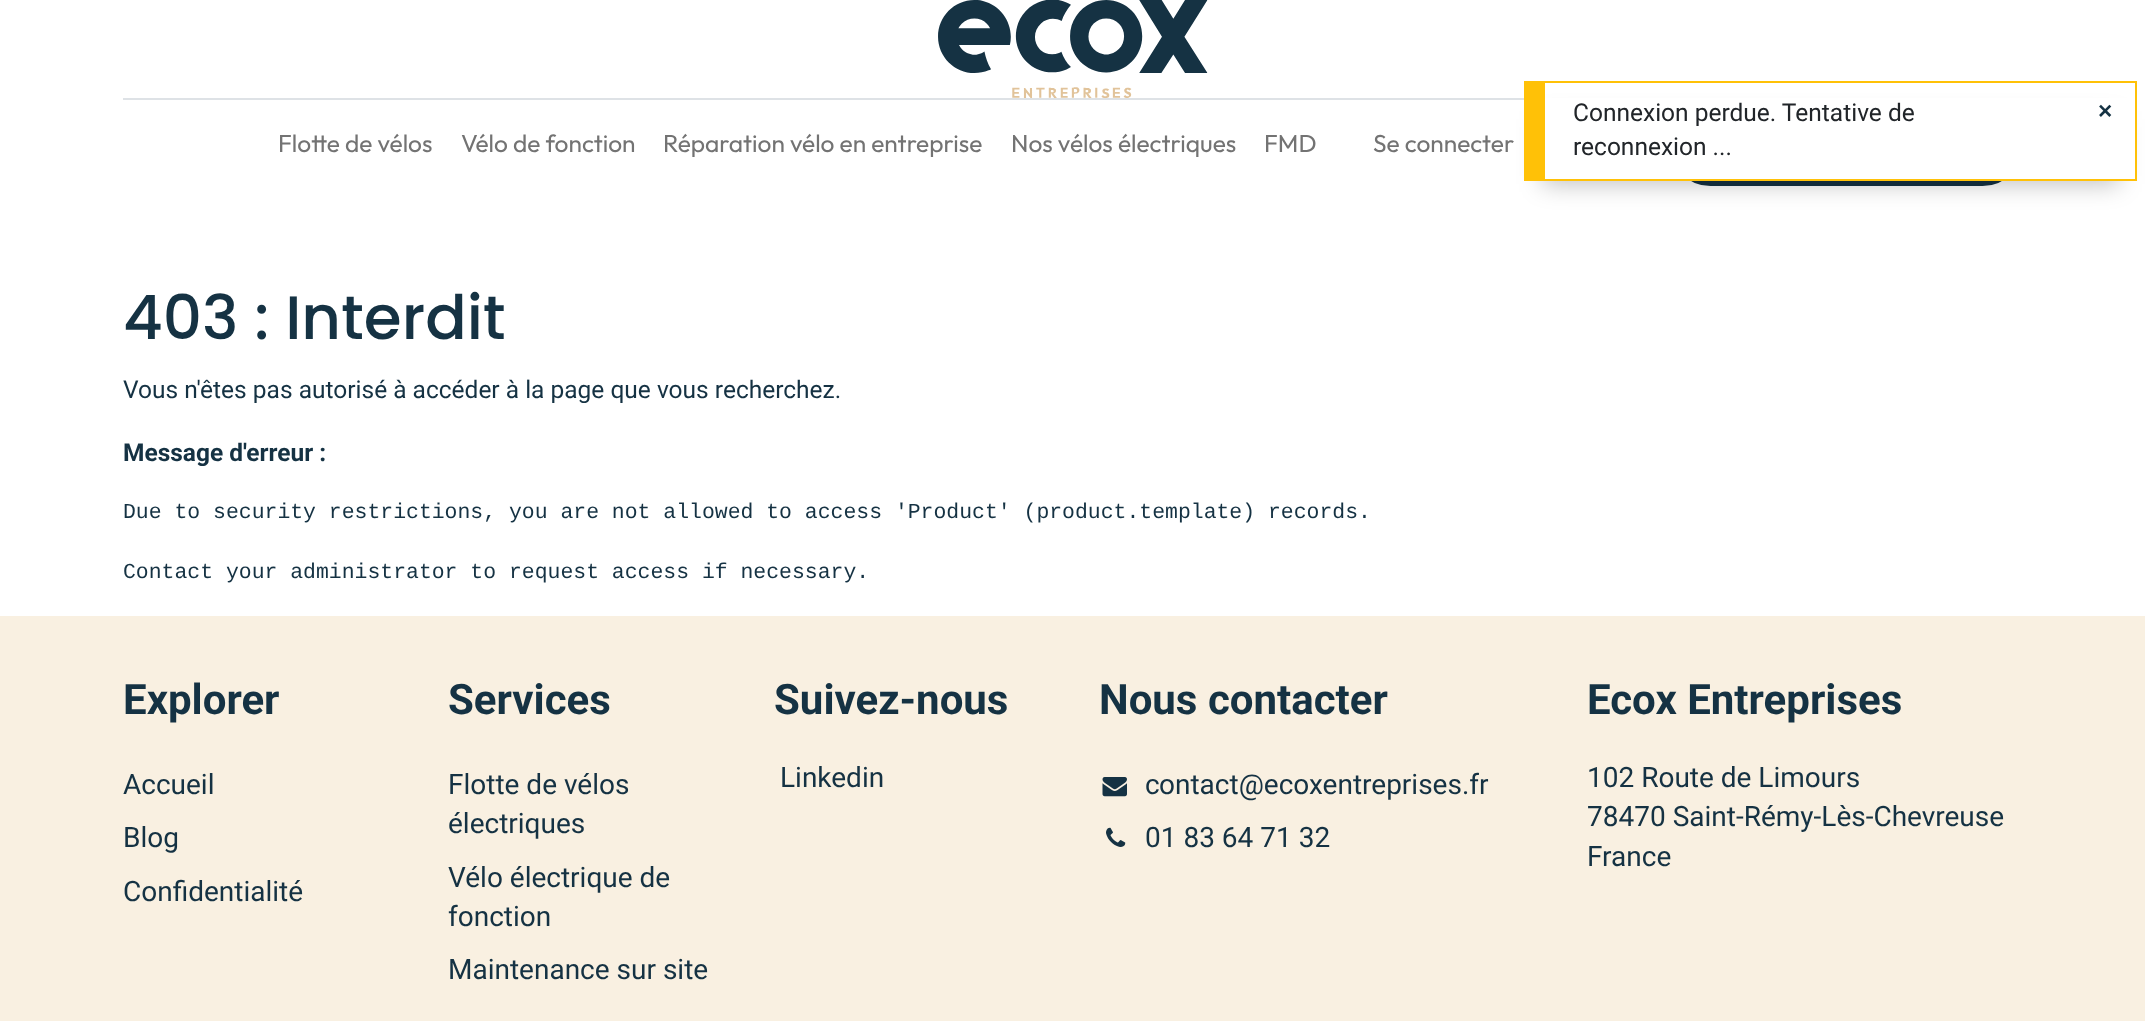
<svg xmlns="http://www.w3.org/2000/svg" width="2145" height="1021">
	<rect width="100%" height="100%" fill="#FFFFFF" />
	<rect x="123" y="98" width="1401" height="2" fill="#DEE2E6" />
	<rect x="1671" y="106" width="351" height="79" rx="39.5" fill="#153243" stroke="#153243" stroke-width="2" />
	<rect x="1542" y="119" width="577" height="65" fill="#000000" fill-opacity="0.25" filter="blur(12px)" />
	<rect x="1545" y="98" width="590" height="81" fill="#FFFFFF" />
	<rect x="1545" y="81" width="592" height="2" fill="#FFC107" />
	<rect x="2135" y="81" width="2" height="99" fill="#FFC107" />
	<rect x="1524" y="179" width="613" height="2" fill="#FFC107" />
	<rect x="1524" y="81" width="21" height="98" fill="#FFC107" />
	<g font-family="Roboto" font-size="24.5" fill="#212529">
		<text x="1573" y="121">Connexion perdue. Tentative de</text>
		<text x="1573" y="155">reconnexion ...</text>
	</g>
	<text x="2098" y="119" font-family="Liberation Sans" font-size="24.5" font-weight="700" fill="#153243">×</text>
	<image x="938" y="0" width="270" height="98" href="assets/img1.png" />
	<g font-family="Outfit" font-size="24.5" fill="#737373">
		<text x="278" y="152">Flotte de vélos</text>
		<text x="461" y="152">Vélo de fonction</text>
		<text x="663" y="152">Réparation vélo en entreprise</text>
		<text x="1011" y="152">Nos vélos électriques</text>
		<text x="1264" y="152">FMD</text>
		<text x="1373" y="152">Se connecter</text>
	</g>
	<text x="123" y="339" font-family="Poppins" font-size="61.25" font-weight="500" fill="#153243">403 : Interdit</text>
	<text x="123" y="398" font-family="Roboto" font-size="24.5" fill="#153243">Vous n'êtes pas autorisé à accéder à la page que vous recherchez.</text>
	<text x="123" y="461" font-family="Roboto" font-size="24.5" font-weight="700" fill="#153243">Message d'erreur :</text>
	<g font-family="Liberation Mono" font-size="21.45" fill="#153243">
		<text x="123" y="518">Due to security restrictions, you are not allowed to access 'Product' (product.template) records.</text>
		<text x="123" y="578">Contact your administrator to request access if necessary.</text>
	</g>
	<rect x="0" y="616" width="2145" height="405" fill="#F9F0E1" />
	<text x="123" y="714" font-family="Roboto" font-size="42" font-weight="700" fill="#153243">Explorer</text>
	<g font-family="Roboto" font-size="28" fill="#153243">
		<text x="123" y="794">Accueil</text>
		<text x="123" y="847">Blog</text>
		<text x="123" y="901">Confidentialité</text>
	</g>
	<text x="448" y="714" font-family="Roboto" font-size="42" font-weight="700" fill="#153243">Services</text>
	<g font-family="Roboto" font-size="28" fill="#153243">
		<text x="448" y="794">Flotte de vélos</text>
		<text x="448" y="833">électriques</text>
		<text x="448" y="887">Vélo électrique de</text>
		<text x="448" y="926">fonction</text>
		<text x="448" y="979">Maintenance sur site</text>
	</g>
	<text x="774" y="714" font-family="Roboto" font-size="42" font-weight="700" fill="#153243">Suivez-nous</text>
	<text x="780" y="787" font-family="Roboto" font-size="28" fill="#153243">Linkedin</text>
	<text x="1099" y="714" font-family="Roboto" font-size="42" font-weight="700" fill="#153243">Nous contacter</text>
	<image x="1102" y="777" width="25" height="20" href="assets/img2.png" />
	<g font-family="Roboto" font-size="28" fill="#153243">
		<text x="1145" y="794">c</text>
		<text x="1159" y="794">ontact@ecoxentreprises.fr</text>
	</g>
	<image x="1106" y="827" width="20" height="20" href="assets/img3.png" />
	<text x="1145" y="847" font-family="Roboto" font-size="28" fill="#153243">01 83 64 71 32</text>
	<text x="1587" y="714" font-family="Roboto" font-size="42" font-weight="700" fill="#153243">Ecox Entreprises</text>
	<g font-family="Roboto" font-size="28" fill="#153243">
		<text x="1587" y="787">102 Route de Limours</text>
		<text x="1587" y="826">78470 Saint-Rémy-Lès-Chevreuse</text>
		<text x="1587" y="866">France</text>
	</g>
</svg>
